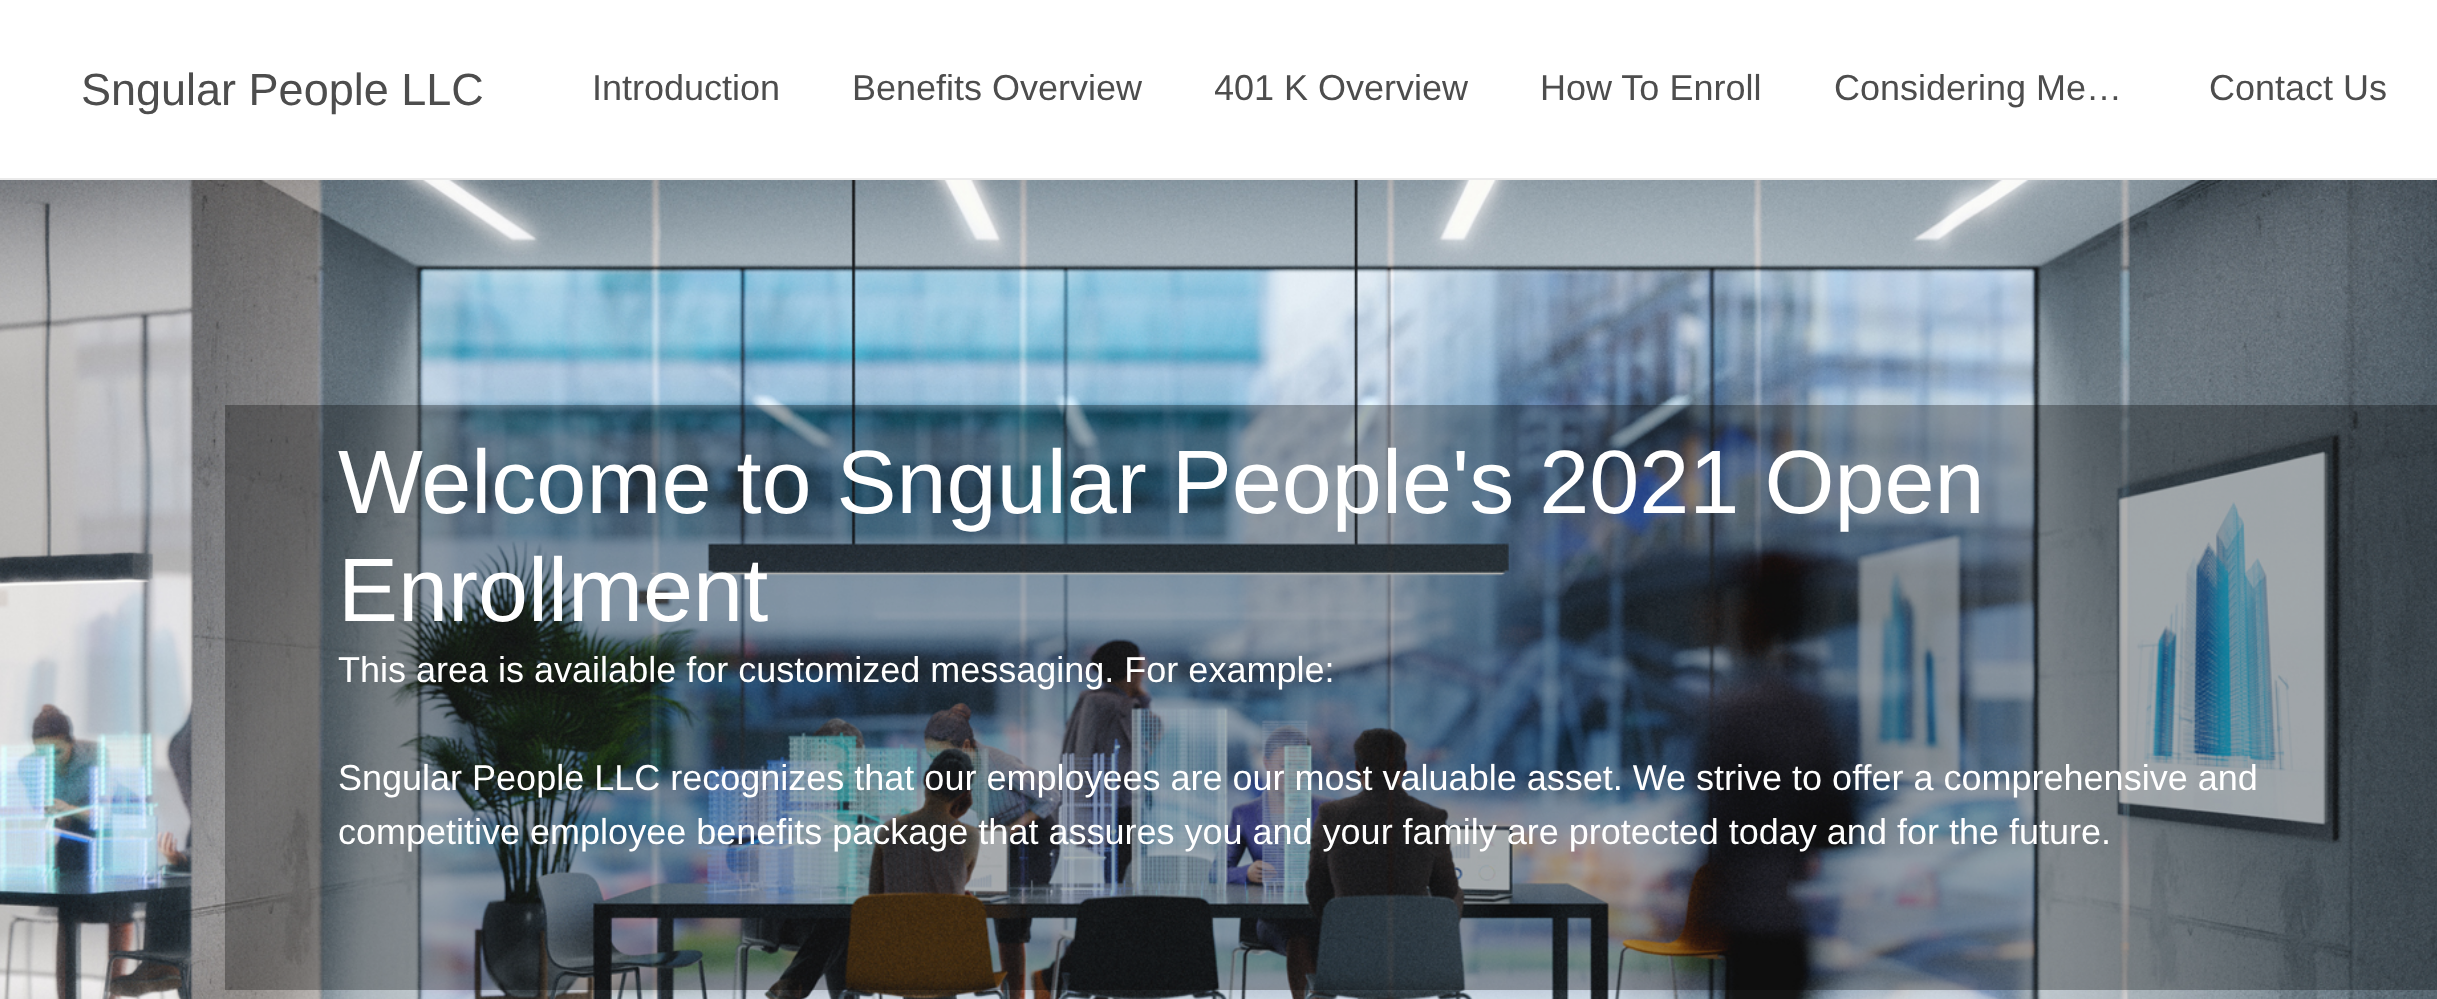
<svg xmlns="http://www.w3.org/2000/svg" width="2437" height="999">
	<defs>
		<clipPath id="clip1"><rect x="1215" y="63" width="254" height="54" /></clipPath>
	</defs>
	<rect width="100%" height="100%" fill="#FFFFFF" />
	<rect x="0" y="178" width="2437" height="2" fill="#EAEAEA" />
	<text x="81" y="105" font-family="Liberation Sans" font-size="45" fill="#4D4D4D">Sngular People LLC</text>
	<g font-family="Liberation Sans" font-size="36" fill="#4D4D4D">
		<text x="592" y="100">Introduction</text>
		<text x="852" y="100">Benefits Overview</text>
	</g>
	<g clip-path="url(#clip1)">
		<text x="1214" y="100" font-family="Liberation Sans" font-size="36" fill="#4D4D4D">401 K Overview</text>
	</g>
	<g font-family="Liberation Sans" font-size="36" fill="#4D4D4D">
		<text x="1540" y="100">How To Enroll</text>
		<text x="1834" y="100">Considering Me…</text>
		<text x="2209" y="100">Contact Us</text>
	</g>
	<image x="0" y="180" width="2437" height="819" href="assets/img1.png" />
	<rect x="225" y="405" width="2212" height="585" fill="#000000" fill-opacity="0.3" />
	<g font-family="Liberation Sans" font-size="90" fill="#FFFFFF">
		<text x="338" y="513">Welcome to Sngular People's 2021 Open</text>
		<text x="338" y="621">Enrollment</text>
	</g>
	<g font-family="Liberation Sans" font-size="36" fill="#FFFFFF">
		<text x="338" y="682">This area is available for customized messaging. For example:</text>
		<text x="338" y="790">Sngular People LLC recognizes that our employees are our most valuable asset. We strive to offer a comprehensive and</text>
		<text x="338" y="844">competitive employee benefits package that assures you and your family are protected today and for the future.</text>
	</g>
</svg>
